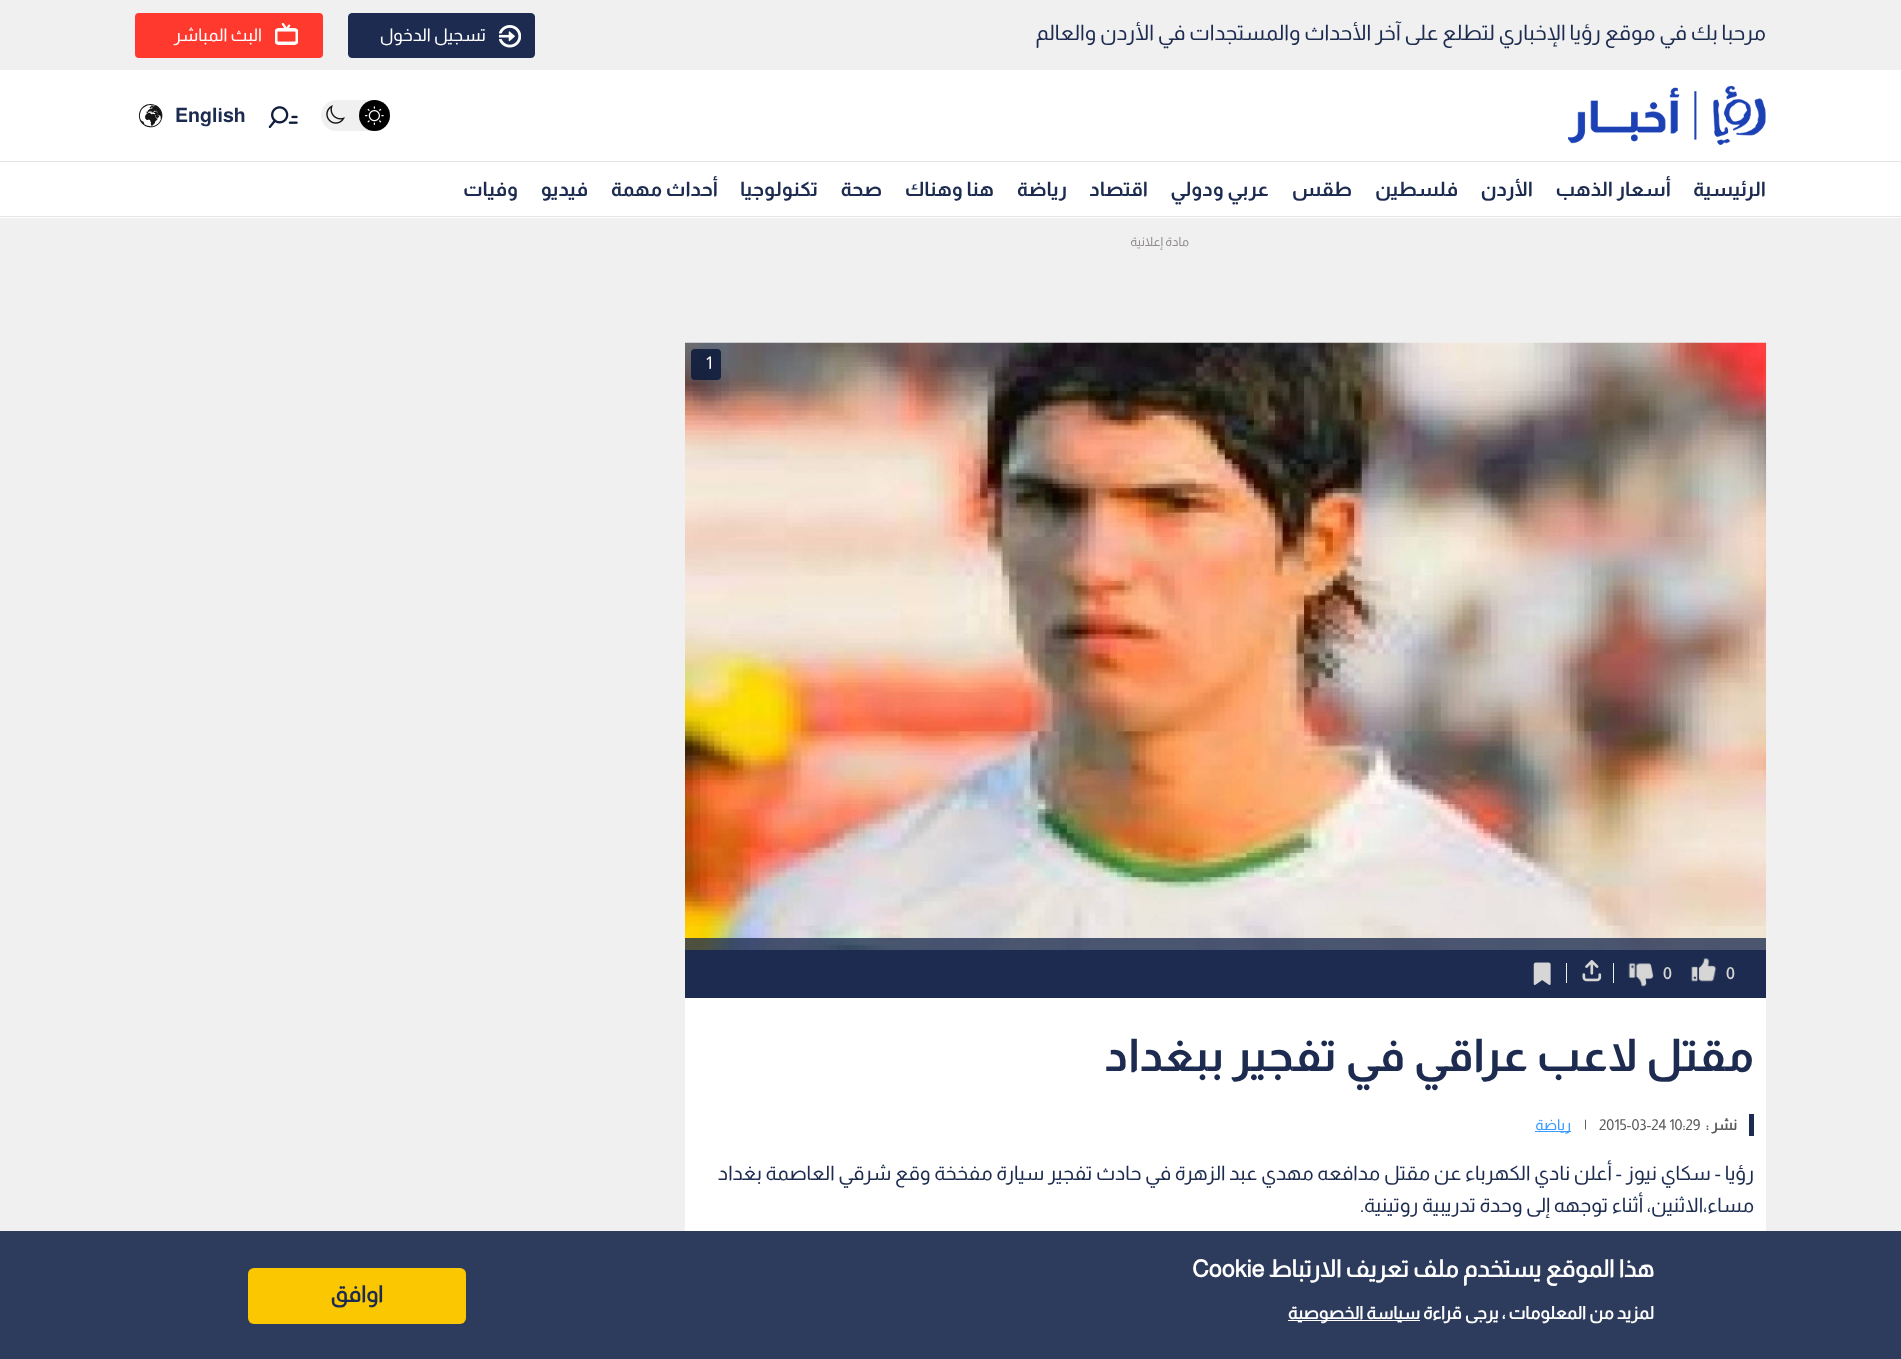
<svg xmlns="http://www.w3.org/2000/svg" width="1901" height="1359">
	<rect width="100%" height="100%" fill="#F0F0F0" />
	<rect x="0" y="1231" width="1901" height="128" fill="#2D3B5C" />
	<text x="1766" y="40" font-family="Almarai" font-size="21.25" direction="rtl" fill="#1C2B4F">مرحبا بك في موقع رؤيا الإخباري لتطلع على آخر الأحداث والمستجدات في الأردن والعالم</text>
	<rect x="348.5" y="13.5" width="186" height="44" rx="3.5" fill="#1C2B4F" stroke="#1C2B4F" />
	<image x="499" y="25" width="22" height="23" href="assets/img1.png" />
	<text x="486" y="41" font-family="Almarai" font-size="17.5" direction="rtl" fill="#FFFFFF">تسجيل الدخول</text>
	<rect x="135" y="13" width="188" height="45" rx="4" fill="#FF392E" />
	<image x="275" y="23" width="23" height="22" href="assets/img2.png" />
	<text x="262" y="41" font-family="Almarai" font-size="17.5" direction="rtl" fill="#FFFFFF">البث المباشر</text>
	<rect x="0" y="70" width="1901" height="148" fill="#FFFFFF" />
	<image x="1568" y="85" width="198" height="60" href="assets/img3.png" />
	<rect x="321" y="100" width="69" height="31" rx="15.5" fill="#F0F0F0" />
	<circle cx="374.5" cy="115.5" r="15.5" fill="#000000" />
	<image x="365" y="106" width="19" height="19" href="assets/img4.png" />
	<image x="326" y="105" width="19" height="19" href="assets/img5.png" />
	<image x="268" y="106" width="30" height="23" href="assets/img6.png" />
	<text x="175" y="122" font-family="Almarai" font-size="20" font-weight="700" fill="#1C2B4F">English</text>
	<image x="138" y="104" width="25" height="24" href="assets/img7.png" />
	<rect x="0" y="161" width="1901" height="1" fill="#E5E5E5" />
	<rect x="0" y="216" width="1901" height="1" fill="#E5E5E5" />
	<g font-family="Almarai" font-size="20" font-weight="700" direction="rtl" fill="#1C2B4F">
		<text x="1766" y="196">الرئيسية</text>
		<text x="1671" y="196">أسعار الذهب</text>
		<text x="1533" y="196">الأردن</text>
		<text x="1458" y="196">فلسطين</text>
		<text x="1352" y="196">طقس</text>
		<text x="1269" y="196">عربي ودولي</text>
		<text x="1148" y="196">اقتصاد</text>
		<text x="1067" y="196">رياضة</text>
		<text x="994" y="196">هنا وهناك</text>
		<text x="882" y="196">صحة</text>
		<text x="818" y="196">تكنولوجيا</text>
		<text x="718" y="196">أحداث مهمة</text>
		<text x="588" y="196">فيديو</text>
		<text x="518" y="196">وفيات</text>
	</g>
	<text x="1654" y="1277" font-family="'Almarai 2'" font-size="23.75" font-weight="700" direction="rtl" fill="#FFFFFF">هذا الموقع يستخدم ملف تعريف الارتباط</text>
	<text x="1192" y="1277" font-family="'Almarai 2'" font-size="23.75" font-weight="700" fill="#FFFFFF">Cookie</text>
	<text x="1654" y="1319" font-family="'Almarai 2'" font-size="17.5" font-weight="700" direction="rtl" fill="#FFFFFF">لمزيد من المعلومات ، يرجى قراءة</text>
	<rect x="1288" y="1320" width="132" height="1" fill="#FFFFFF" />
	<text x="1420" y="1319" font-family="'Almarai 2'" font-size="17.5" font-weight="700" direction="rtl" fill="#FFFFFF">سياسة الخصوصية</text>
	<rect x="248" y="1268" width="218" height="56" rx="6" fill="#FBC700" />
	<text x="383" y="1302" font-family="'Almarai 2'" font-size="22.5" font-weight="700" direction="rtl" fill="#1C2B4F">اوافق</text>
	<text x="1189" y="246" font-family="Almarai" font-size="12.5" direction="rtl" fill="#918D8D">مادة إعلانية</text>
	<rect x="685" y="998" width="1081" height="233" fill="#FFFFFF" />
	<image x="685" y="342" width="1082" height="608" href="assets/img8.png" />
	<rect x="691" y="349" width="30" height="31" rx="4" fill="#0F1C3C" fill-opacity="0.89" />
	<text x="706" y="369" font-family="Almarai" font-size="17.5" fill="#FFFFFF">1</text>
	<rect x="685" y="938" width="1081" height="12" fill="#1C2B4F" fill-opacity="0.78" />
	<rect x="685" y="950" width="1081" height="48" fill="#1C2B4F" />
	<text x="1726" y="979" font-family="'Almarai 2'" font-size="16" font-weight="700" fill="#D6D6D6">0</text>
	<image x="1691" y="958" width="26" height="24" href="assets/img9.png" />
	<text x="1663" y="979" font-family="'Almarai 2'" font-size="16" font-weight="700" fill="#D6D6D6">0</text>
	<image x="1628" y="963" width="26" height="24" href="assets/img10.png" />
	<rect x="1613" y="963" width="1" height="20" fill="#F0F0F0" />
	<image x="1582" y="960" width="20" height="22" href="assets/img11.png" />
	<rect x="1566" y="963" width="1" height="20" fill="#F0F0F0" />
	<image x="1533" y="962" width="18" height="23" href="assets/img12.png" />
	<text x="1754" y="1071" font-family="Almarai" font-size="45" font-weight="700" direction="rtl" fill="#1C2B4F">مقتل لاعب عراقي في تفجير ببغداد</text>
	<rect x="1749" y="1114" width="5" height="22" fill="#1C2B4F" />
	<text x="1737" y="1130" font-family="'Almarai 2'" font-size="15" font-weight="700" direction="rtl" fill="#595959">نشر :</text>
	<g font-family="Almarai" font-size="15" fill="#595959">
		<text x="1599" y="1130">2015-03-24 10:29</text>
		<text x="1584" y="1130">|</text>
	</g>
	<rect x="1535" y="1131" width="36" height="1" fill="#389BFF" />
	<text x="1571" y="1130" font-family="Almarai" font-size="15" direction="rtl" fill="#389BFF">رياضة</text>
	<g font-family="Almarai" font-size="20" direction="rtl" fill="#1C2B4F">
		<text x="1754" y="1180">رؤيا - سكاي نيوز - أعلن نادي الكهرباء عن مقتل مدافعه مهدي عبد الزهرة في حادث تفجير سيارة مفخخة وقع شرقي العاصمة بغداد</text>
		<text x="1754" y="1212">مساء،الاثنين، أثناء توجهه إلى وحدة تدريبية روتينية.</text>
	</g>
</svg>
